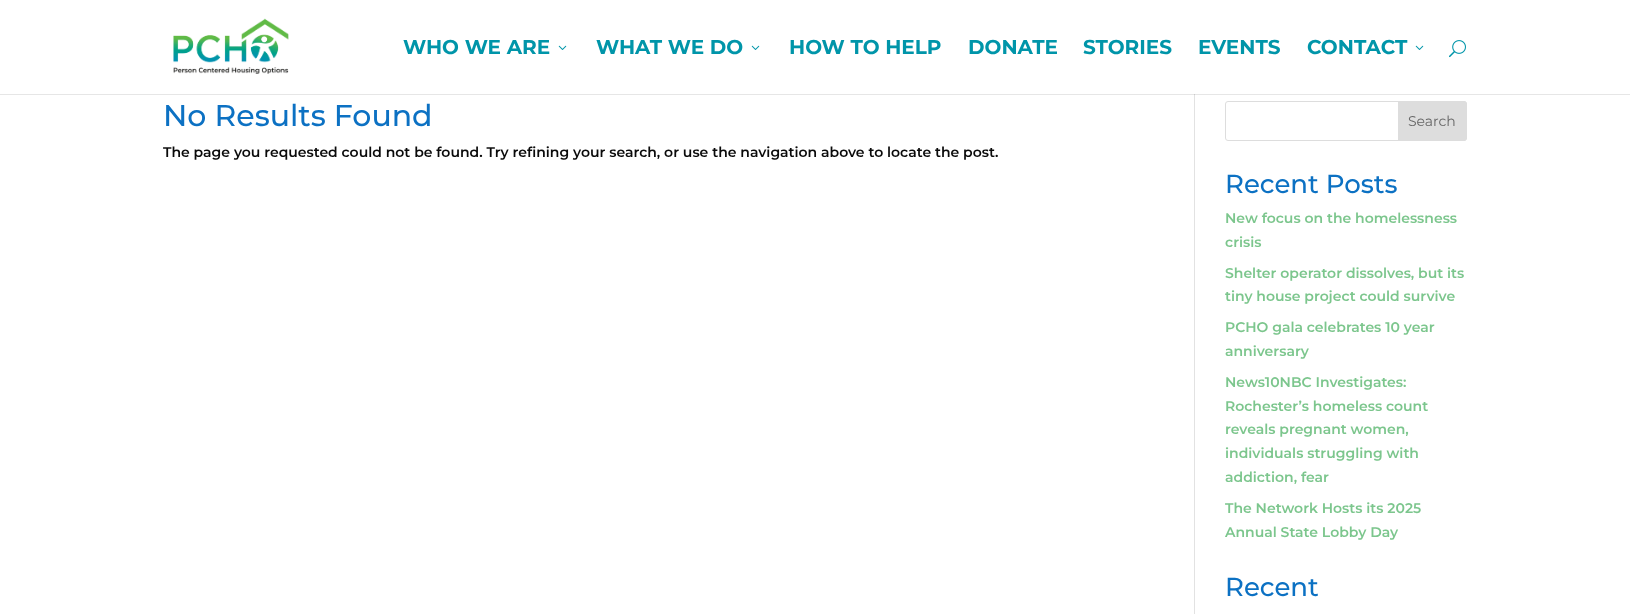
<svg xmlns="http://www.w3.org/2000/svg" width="1630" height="614">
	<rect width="100%" height="100%" fill="#FFFFFF" />
	<rect x="0" y="94" width="1630" height="1" fill="#E6E6E6" />
	<image x="173" y="18" width="116" height="56" href="assets/img1.png" />
	<text x="403" y="54" font-family="Montserrat" font-size="20" font-weight="700" fill="#0095A9">WHO WE ARE</text>
	<image x="558" y="45" width="9" height="5" href="assets/img2.png" />
	<text x="596" y="54" font-family="Montserrat" font-size="20" font-weight="700" fill="#0095A9">WHAT WE DO</text>
	<image x="751" y="45" width="9" height="5" href="assets/img2.png" />
	<g font-family="Montserrat" font-size="20" font-weight="700" fill="#0095A9">
		<text x="789" y="54">HOW TO HELP</text>
		<text x="968" y="54">DONATE</text>
		<text x="1083" y="54">STORIES</text>
		<text x="1198" y="54">EVENTS</text>
		<text x="1307" y="54">CONTACT</text>
	</g>
	<image x="1415" y="45" width="9" height="5" href="assets/img2.png" />
	<image x="1449" y="40" width="17" height="18" href="assets/img3.png" />
	<rect x="1194" y="95" width="1" height="519" fill="#E2E2E2" />
	<rect x="1194" y="94" width="1" height="1" fill="#CBCBCB" />
	<text x="163" y="126" font-family="Montserrat" font-size="30" font-weight="500" fill="#0C71C3">No Results Found</text>
	<text x="163" y="157" font-family="Montserrat" font-size="14" font-weight="600" fill="#0A0A0A">The page you requested could not be found. Try refining your search, or use the navigation above to locate the post.</text>
	<rect x="1225.5" y="101.5" width="241" height="39" rx="2.5" fill="none" stroke="#DDDDDD" />
	<path d="M1398.5 101.5H1464C1465.5 101.5 1466.5 102.5 1466.5 104V138C1466.5 139.5 1465.5 140.5 1464 140.5H1398.5Z" fill="#DDDDDD" stroke="#DDDDDD" />
	<text x="1408" y="126" font-family="Montserrat" font-size="14" fill="#666666">Search</text>
	<text x="1225" y="193" font-family="Montserrat" font-size="26" font-weight="500" fill="#0C71C3">Recent Posts</text>
	<g font-family="Montserrat" font-size="14" font-weight="600" fill="#7CC68D">
		<text x="1225" y="223">New focus on the homelessness</text>
		<text x="1225" y="247">crisis</text>
		<text x="1225" y="278">Shelter operator dissolves, but its</text>
		<text x="1225" y="301">tiny house project could survive</text>
		<text x="1225" y="332">PCHO gala celebrates 10 year</text>
		<text x="1225" y="356">anniversary</text>
		<text x="1225" y="387">News10NBC Investigates:</text>
		<text x="1225" y="411">Rochester’s homeless count</text>
		<text x="1225" y="434">reveals pregnant women,</text>
		<text x="1225" y="458">individuals struggling with</text>
		<text x="1225" y="482">addiction, fear</text>
		<text x="1225" y="513">The Network Hosts its 2025</text>
		<text x="1225" y="537">Annual State Lobby Day</text>
	</g>
	<text x="1225" y="596" font-family="Montserrat" font-size="26" font-weight="500" fill="#0C71C3">Recent</text>
</svg>
